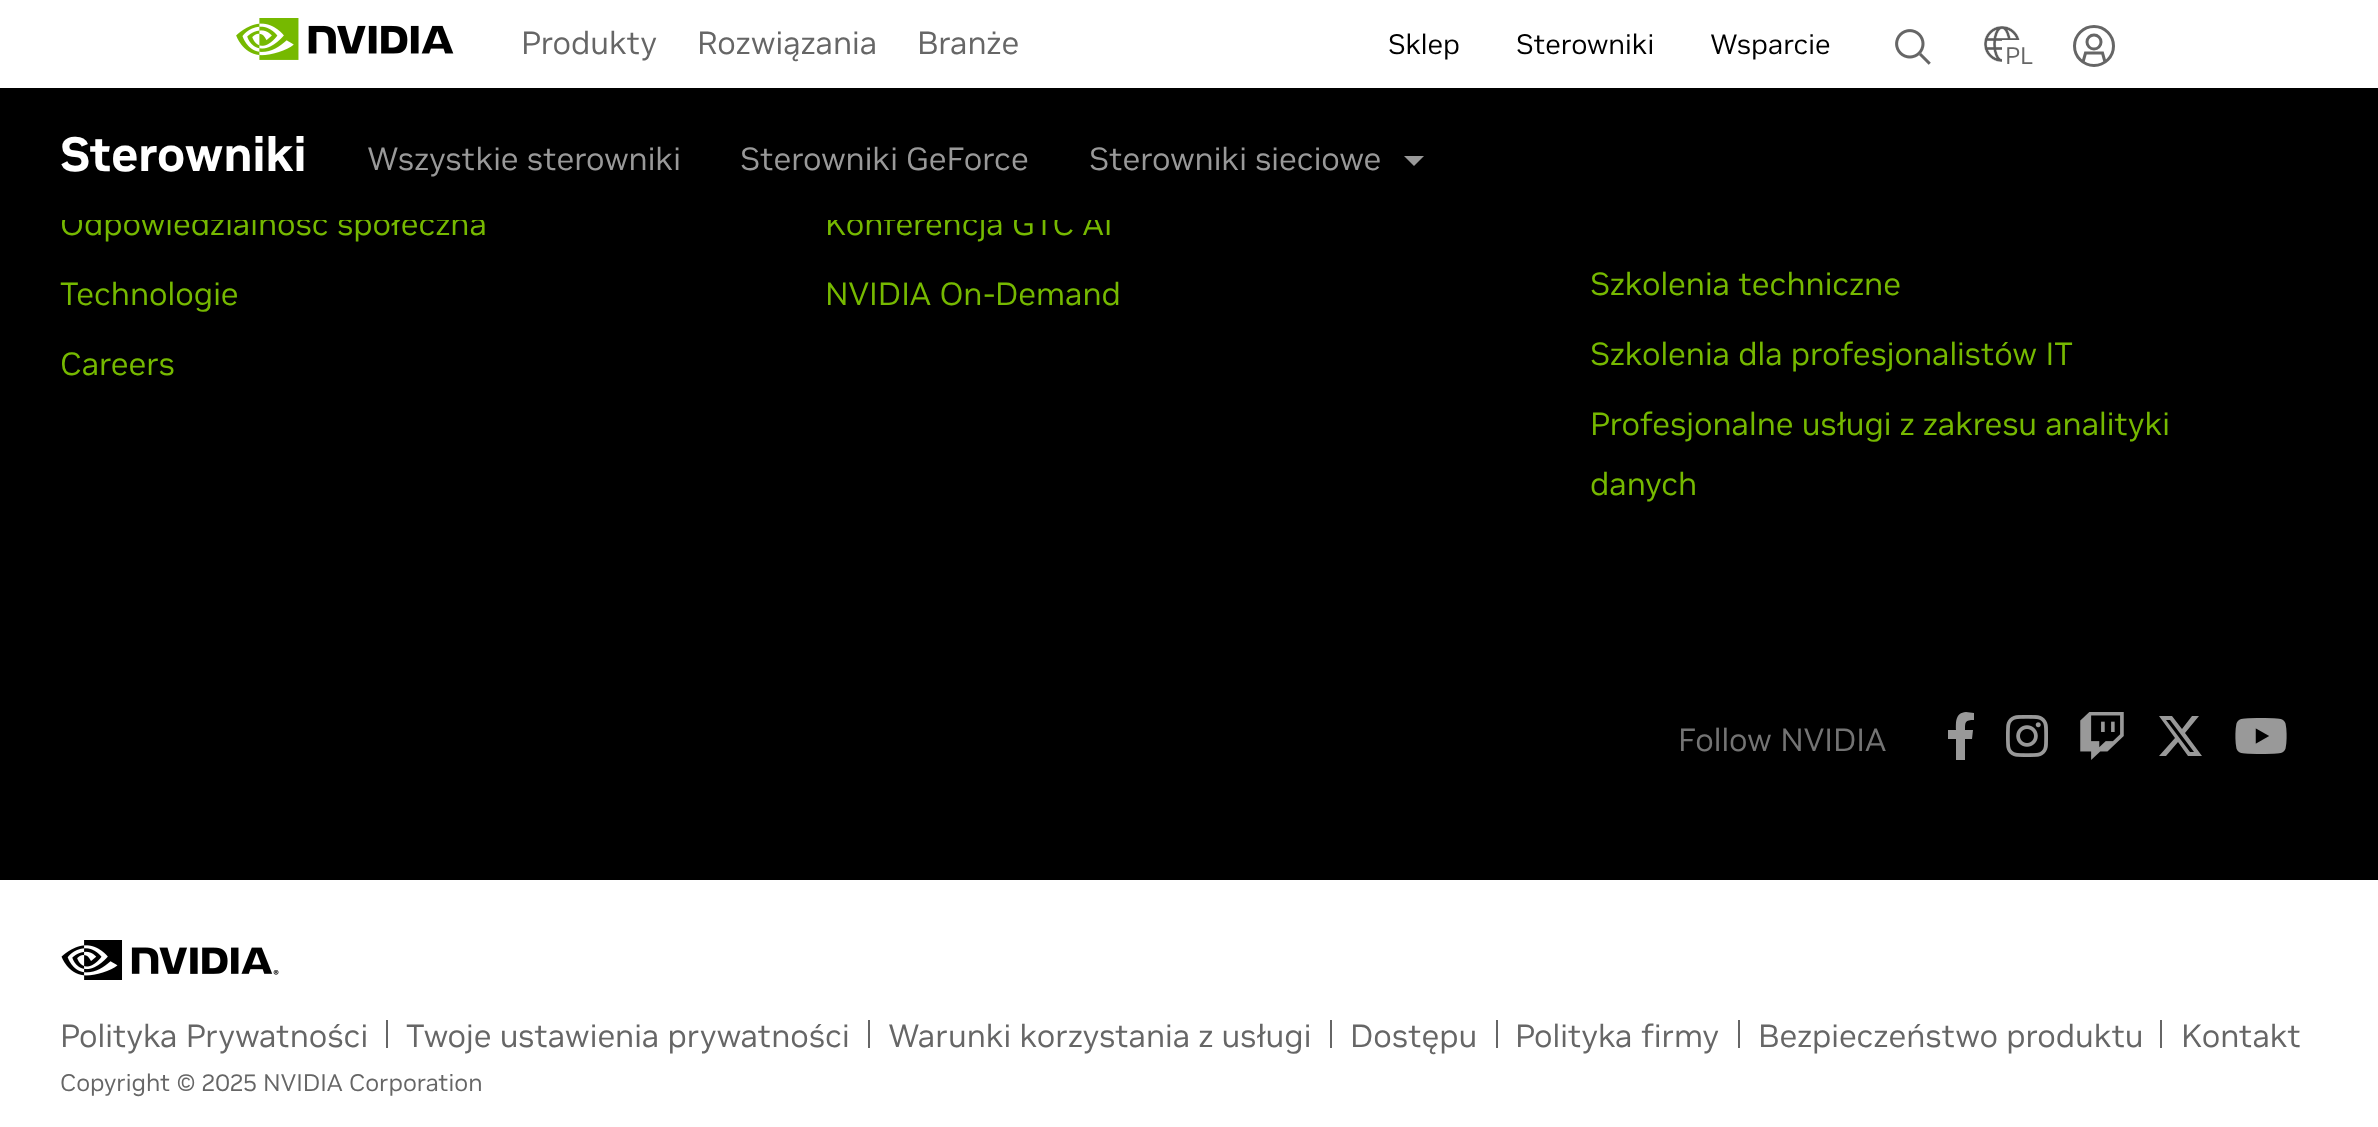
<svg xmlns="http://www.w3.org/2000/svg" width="2378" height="1127">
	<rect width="100%" height="100%" fill="#FFFFFF" />
	<image x="236" y="18" width="218" height="42" href="assets/img1.png" />
	<g font-family="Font" font-size="32" fill="#666666">
		<text x="521" y="54">Produkty</text>
		<text x="697" y="54">Rozwiązania</text>
		<text x="917" y="54">Branże</text>
	</g>
	<g font-family="Font" font-size="28" fill="#000000">
		<text x="1388" y="54">Sklep</text>
		<text x="1516" y="54">Sterowniki</text>
		<text x="1710" y="54">Wsparcie</text>
	</g>
	<image x="1895" y="29" width="36" height="36" href="assets/img2.png" />
	<image x="1984" y="26" width="36" height="36" href="assets/img3.png" />
	<rect x="2002" y="40" width="18" height="22" fill="#FFFFFF" />
	<text x="2005" y="64" font-family="Font" font-size="24" fill="#666666">PL</text>
	<circle cx="2094" cy="46" r="19.5" fill="none" stroke="#666666" stroke-width="3" />
	<circle cx="2094" cy="42" r="7" fill="none" stroke="#666666" stroke-width="3" />
	<path d="M2105 62L2102.5 53H2085.5L2083 62" fill="none" stroke="#666666" stroke-width="3" />
	<rect x="0" y="220" width="2378" height="660" fill="#000000" />
	<g font-family="Font" font-size="32" fill="#76B900">
		<text x="60" y="235">Odpowiedzialność społeczna</text>
		<text x="825" y="235">Konferencja GTC AI</text>
	</g>
	<rect x="0" y="88" width="2378" height="132" fill="#000000" />
	<text x="60" y="171" font-family="Font" font-size="48" font-weight="700" fill="#FFFFFF">Sterowniki</text>
	<g font-family="Font" font-size="32" fill="#999999">
		<text x="367" y="170">Wszystkie sterowniki</text>
		<text x="740" y="170">Sterowniki GeForce</text>
		<text x="1089" y="170">Sterowniki sieciowe</text>
	</g>
	<path d="M1404 156L1414 166L1424 156Z" fill="#999999" />
	<g font-family="Font" font-size="32" fill="#76B900">
		<text x="60" y="305">Technologie</text>
		<text x="60" y="375">Careers</text>
		<text x="825" y="305">NVIDIA On-Demand</text>
		<text x="1590" y="295">Szkolenia techniczne</text>
		<text x="1590" y="365">Szkolenia dla profesjonalistów IT</text>
		<text x="1590" y="435">Profesjonalne usługi z zakresu analityki</text>
		<text x="1590" y="495">danych</text>
	</g>
	<text x="1678" y="751" font-family="Font" font-size="32" fill="#747474">Follow NVIDIA</text>
	<path d="M1972 739L1973 730H1965C1965 722 1965 720 1974 720V713L1966 712C1955 713 1956 722 1956 730H1948V739H1956V760H1965V739Z" fill="#999999" />
	<image x="2006" y="715" width="42" height="42" href="assets/img4.png" />
	<image x="2080" y="712" width="44" height="48" href="assets/img5.png" />
	<path d="M2192 716H2199L2185 733L2202 756H2188L2178 742L2166 756H2159L2175 738L2159 716H2172L2182 729ZM2190 752H2194L2170 720H2166Z" fill="#999999" />
	<image x="2235" y="718" width="52" height="36" href="assets/img6.png" />
	<image x="61" y="940" width="218" height="40" href="assets/img7.png" />
	<text x="60" y="1047" font-family="Font" font-size="32" fill="#666666">Polityka Prywatności</text>
	<rect x="386" y="1020" width="2" height="28" fill="#666666" />
	<text x="406" y="1047" font-family="Font" font-size="32" fill="#666666">Twoje ustawienia prywatności</text>
	<rect x="868" y="1020" width="2" height="28" fill="#666666" />
	<text x="888" y="1047" font-family="Font" font-size="32" fill="#666666">Warunki korzystania z usługi</text>
	<rect x="1330" y="1020" width="2" height="28" fill="#666666" />
	<text x="1350" y="1047" font-family="Font" font-size="32" fill="#666666">Dostępu</text>
	<rect x="1496" y="1020" width="2" height="28" fill="#666666" />
	<text x="1515" y="1047" font-family="Font" font-size="32" fill="#666666">Polityka firmy</text>
	<rect x="1738" y="1020" width="2" height="28" fill="#666666" />
	<text x="1758" y="1047" font-family="Font" font-size="32" fill="#666666">Bezpieczeństwo produktu</text>
	<rect x="2160" y="1020" width="2" height="28" fill="#666666" />
	<text x="2181" y="1047" font-family="Font" font-size="32" fill="#666666">Kontakt</text>
	<text x="60" y="1091" font-family="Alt" font-size="24" fill="#666666">Copyright © 2025 NVIDIA Corporation</text>
</svg>
